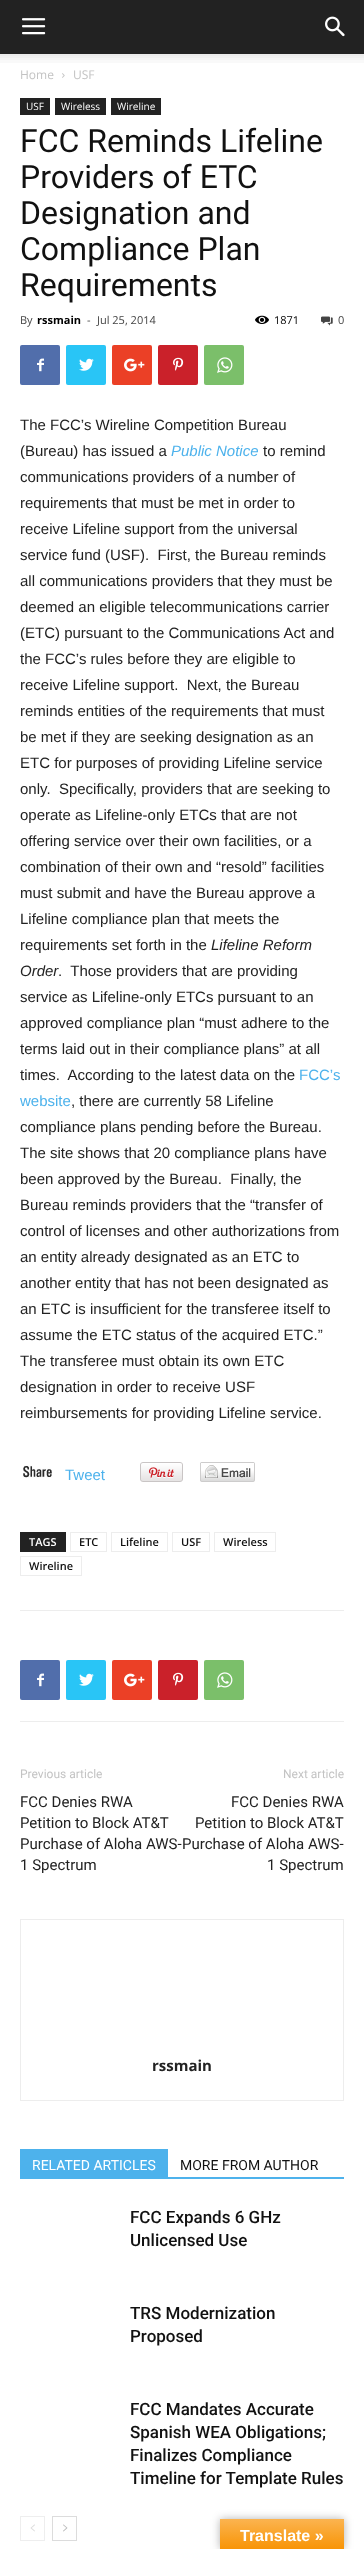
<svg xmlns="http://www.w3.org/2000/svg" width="364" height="2549">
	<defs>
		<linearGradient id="g1" gradientUnits="userSpaceOnUse" x1="282" y1="2519" x2="282" y2="2549"><stop offset="0" stop-color="#FBB450" /><stop offset="1" stop-color="#F89406" /></linearGradient>
	</defs>
	<rect width="100%" height="100%" fill="#FFFFFF" />
	<rect x="0" y="0" width="364" height="54" fill="#222222" />
	<image x="22" y="18" width="24" height="17" href="assets/img1.png" />
	<image x="325" y="16" width="20" height="21" href="assets/img2.png" />
	<image x="0" y="54" width="364" height="9" href="assets/img3.png" />
	<text x="20" y="79" font-family="Open Sans" font-size="12" fill="#C3C3C3">Home</text>
	<image x="62" y="73" width="3" height="5" href="assets/img4.png" />
	<text x="73" y="79" font-family="Open Sans" font-size="12" fill="#C3C3C3">USF</text>
	<rect x="20" y="98" width="30" height="17" fill="#222222" />
	<text x="26" y="110" font-family="Open Sans" font-size="10" fill="#FFFFFF">USF</text>
	<rect x="55" y="98" width="51" height="17" fill="#222222" />
	<text x="61" y="110" font-family="Open Sans" font-size="10" fill="#FFFFFF">Wireless</text>
	<rect x="111" y="98" width="50" height="17" fill="#222222" />
	<text x="117" y="110" font-family="Open Sans" font-size="10" fill="#FFFFFF">Wireline</text>
	<g font-family="Roboto" font-size="32" fill="#111111">
		<text x="20" y="152">FCC Reminds Lifeline</text>
		<text x="20" y="188">Providers of ETC</text>
		<text x="20" y="224">Designation and</text>
		<text x="20" y="260">Compliance Plan</text>
		<text x="20" y="296">Requirements</text>
	</g>
	<text x="20" y="324" font-family="Open Sans" font-size="11" fill="#444444">By</text>
	<text x="37" y="324" font-family="Open Sans" font-size="11" font-weight="700" fill="#000000">rssmain</text>
	<g font-family="Open Sans" font-size="11" fill="#444444">
		<text x="87" y="324">-</text>
		<text x="97" y="324">Jul 25, 2014</text>
	</g>
	<image x="255" y="315" width="14" height="9" href="assets/img5.png" />
	<text x="274" y="324" font-family="Open Sans" font-size="11" fill="#000000">1871</text>
	<image x="321" y="316" width="12" height="10" href="assets/img6.png" />
	<text x="338" y="324" font-family="Open Sans" font-size="11" fill="#444444">0</text>
	<rect x="20" y="345" width="40" height="40" rx="2" fill="#516EAB" />
	<image x="37" y="358" width="7" height="14" href="assets/img7.png" />
	<rect x="66" y="345" width="40" height="40" rx="2" fill="#29C5F6" />
	<image x="79" y="358" width="15" height="13" href="assets/img8.png" />
	<rect x="112" y="345" width="40" height="40" rx="2" fill="#EB4026" />
	<image x="124" y="358" width="21" height="14" href="assets/img9.png" />
	<rect x="158" y="345" width="40" height="40" rx="2" fill="#CA212A" />
	<image x="173" y="357" width="11" height="14" href="assets/img10.png" />
	<rect x="204" y="345" width="40" height="40" rx="2" fill="#7BBF6A" />
	<image x="217" y="357" width="16" height="16" href="assets/img11.png" />
	<g font-family="Liberation Sans" font-size="15" fill="#222222">
		<text x="20" y="430">The FCC’s Wireline Competition Bureau</text>
		<text x="20" y="456">(Bureau) has issued a</text>
	</g>
	<text x="171" y="456" font-family="Liberation Sans" font-size="15" font-style="italic" fill="#4DB2EC">Public Notice</text>
	<g font-family="Liberation Sans" font-size="15" fill="#222222">
		<text x="263" y="456">to remind</text>
		<text x="20" y="482">communications providers of a number of</text>
		<text x="20" y="508">requirements that must be met in order to</text>
		<text x="20" y="534">receive Lifeline support from the universal</text>
		<text x="20" y="560" xml:space="preserve">service fund (USF).  First, the Bureau reminds</text>
		<text x="20" y="586">all communications providers that they must be</text>
		<text x="20" y="612">deemed an eligible telecommunications carrier</text>
		<text x="20" y="638">(ETC) pursuant to the Communications Act and</text>
		<text x="20" y="664">the FCC’s rules before they are eligible to</text>
		<text x="20" y="690" xml:space="preserve">receive Lifeline support.  Next, the Bureau</text>
		<text x="20" y="716">reminds entities of the requirements that must</text>
		<text x="20" y="742">be met if they are seeking designation as an</text>
		<text x="20" y="768">ETC for purposes of providing Lifeline service</text>
		<text x="20" y="794" xml:space="preserve">only.  Specifically, providers that are seeking to</text>
		<text x="20" y="820">operate as Lifeline-only ETCs that are not</text>
		<text x="20" y="846">offering service over their own facilities, or a</text>
		<text x="20" y="872">combination of their own and “resold” facilities</text>
		<text x="20" y="898">must submit and have the Bureau approve a</text>
		<text x="20" y="924">Lifeline compliance plan that meets the</text>
		<text x="20" y="950">requirements set forth in the</text>
	</g>
	<g font-family="Liberation Sans" font-size="15" font-style="italic" fill="#222222">
		<text x="211" y="950">Lifeline Reform</text>
		<text x="20" y="976">Order</text>
	</g>
	<g font-family="Liberation Sans" font-size="15" fill="#222222">
		<text x="58" y="976" xml:space="preserve">.  Those providers that are providing</text>
		<text x="20" y="1002">service as Lifeline-only ETCs pursuant to an</text>
		<text x="20" y="1028">approved compliance plan “must adhere to the</text>
		<text x="20" y="1054">terms laid out in their compliance plans” at all</text>
		<text x="20" y="1080" xml:space="preserve">times.  According to the latest data on the</text>
	</g>
	<g font-family="Liberation Sans" font-size="15" fill="#4DB2EC">
		<text x="299" y="1080">FCC’s</text>
		<text x="20" y="1106">website</text>
	</g>
	<g font-family="Liberation Sans" font-size="15" fill="#222222">
		<text x="71" y="1106">, there are currently 58 Lifeline</text>
		<text x="20" y="1132">compliance plans pending before the Bureau.</text>
		<text x="20" y="1158">The site shows that 20 compliance plans have</text>
		<text x="20" y="1184" xml:space="preserve">been approved by the Bureau.  Finally, the</text>
		<text x="20" y="1210">Bureau reminds providers that the “transfer of</text>
		<text x="20" y="1236">control of licenses and other authorizations from</text>
		<text x="20" y="1262">an entity already designated as an ETC to</text>
		<text x="20" y="1288">another entity that has not been designated as</text>
		<text x="20" y="1314">an ETC is insufficient for the transferee itself to</text>
		<text x="20" y="1340">assume the ETC status of the acquired ETC.”</text>
		<text x="20" y="1366">The transferee must obtain its own ETC</text>
		<text x="20" y="1392">designation in order to receive USF</text>
		<text x="20" y="1418">reimbursements for providing Lifeline service.</text>
	</g>
	<image x="23" y="1465" width="29" height="13" href="assets/img12.png" />
	<text x="65" y="1480" font-family="Liberation Sans" font-size="15" fill="#4DB2EC">Tweet</text>
	<image x="140" y="1462" width="43" height="20" href="assets/img13.png" />
	<image x="200" y="1462" width="55" height="20" href="assets/img14.png" />
	<rect x="20" y="1532" width="46" height="20" fill="#222222" />
	<text x="29" y="1546" font-family="Open Sans" font-size="11" font-weight="600" fill="#FFFFFF">TAGS</text>
	<rect x="70.5" y="1532.5" width="36" height="19" fill="none" stroke="#EDEDED" />
	<text x="79" y="1546" font-family="Open Sans" font-size="11" font-weight="600" fill="#111111">ETC</text>
	<rect x="111.5" y="1532.5" width="56" height="19" fill="none" stroke="#EDEDED" />
	<text x="120" y="1546" font-family="Open Sans" font-size="11" font-weight="600" fill="#111111">Lifeline</text>
	<rect x="172.5" y="1532.5" width="37" height="19" fill="none" stroke="#EDEDED" />
	<text x="181" y="1546" font-family="Open Sans" font-size="11" font-weight="600" fill="#111111">USF</text>
	<rect x="214.5" y="1532.5" width="61" height="19" fill="none" stroke="#EDEDED" />
	<text x="223" y="1546" font-family="Open Sans" font-size="11" font-weight="600" fill="#111111">Wireless</text>
	<rect x="20.5" y="1556.5" width="61" height="19" fill="none" stroke="#EDEDED" />
	<text x="29" y="1570" font-family="Open Sans" font-size="11" font-weight="600" fill="#111111">Wireline</text>
	<rect x="20" y="1610" width="324" height="1" fill="#EDEDED" />
	<rect x="20" y="1721" width="324" height="1" fill="#EDEDED" />
	<rect x="20" y="1660" width="40" height="40" rx="2" fill="#516EAB" />
	<image x="37" y="1673" width="7" height="14" href="assets/img7.png" />
	<rect x="66" y="1660" width="40" height="40" rx="2" fill="#29C5F6" />
	<image x="79" y="1673" width="15" height="13" href="assets/img8.png" />
	<rect x="112" y="1660" width="40" height="40" rx="2" fill="#EB4026" />
	<image x="124" y="1673" width="21" height="14" href="assets/img9.png" />
	<rect x="158" y="1660" width="40" height="40" rx="2" fill="#CA212A" />
	<image x="173" y="1672" width="11" height="14" href="assets/img10.png" />
	<rect x="204" y="1660" width="40" height="40" rx="2" fill="#7BBF6A" />
	<image x="217" y="1672" width="16" height="16" href="assets/img11.png" />
	<text x="20" y="1778" font-family="Roboto" font-size="12" fill="#C3C3C3">Previous article</text>
	<g font-family="Roboto" font-size="15" fill="#222222">
		<text x="20" y="1807">FCC Denies RWA</text>
		<text x="20" y="1828">Petition to Block AT&amp;T</text>
		<text x="20" y="1849">Purchase of Aloha AWS-</text>
		<text x="20" y="1870">1 Spectrum</text>
	</g>
	<text x="283" y="1778" font-family="Roboto" font-size="12" fill="#C3C3C3">Next article</text>
	<g font-family="Roboto" font-size="15" fill="#222222">
		<text x="231" y="1807">FCC Denies RWA</text>
		<text x="195" y="1828">Petition to Block AT&amp;T</text>
		<text x="182" y="1849">Purchase of Aloha AWS-</text>
		<text x="267" y="1870">1 Spectrum</text>
	</g>
	<rect x="20.5" y="1919.5" width="323" height="181" fill="none" stroke="#EDEDED" />
	<text x="152" y="2071" font-family="Open Sans" font-size="15" font-weight="700" fill="#222222">rssmain</text>
	<rect x="20" y="2177" width="324" height="2" fill="#4DB2EC" />
	<rect x="20" y="2149" width="148" height="28" fill="#4DB2EC" />
	<text x="32" y="2170" font-family="Roboto" font-size="14" fill="#FFFFFF">RELATED ARTICLES</text>
	<text x="180" y="2170" font-family="Roboto" font-size="14" fill="#111111">MORE FROM AUTHOR</text>
	<g font-family="Roboto" font-size="17" font-weight="500" fill="#111111">
		<text x="130" y="2223">FCC Expands 6 GHz</text>
		<text x="130" y="2246">Unlicensed Use</text>
		<text x="130" y="2319">TRS Modernization</text>
		<text x="130" y="2342">Proposed</text>
		<text x="130" y="2415">FCC Mandates Accurate</text>
		<text x="130" y="2438">Spanish WEA Obligations;</text>
		<text x="130" y="2461">Finalizes Compliance</text>
		<text x="130" y="2484">Timeline for Template Rules</text>
	</g>
	<rect x="20.5" y="2516.5" width="24" height="24" fill="none" stroke="#EEEEEE" />
	<image x="30" y="2524" width="5" height="8" href="assets/img15.png" />
	<rect x="52.5" y="2516.5" width="24" height="24" fill="none" stroke="#DCDCDC" />
	<image x="63" y="2524" width="5" height="8" href="assets/img16.png" />
	<rect x="220" y="2519" width="124" height="30" fill="#000000" fill-opacity="0.3" filter="blur(4.5px)" />
	<rect x="220" y="2519" width="124" height="30" fill="url(#g1)" />
	<text x="240" y="2541" font-family="Liberation Sans" font-size="16" font-weight="700" fill="#FFFFFF">Translate »</text>
</svg>
